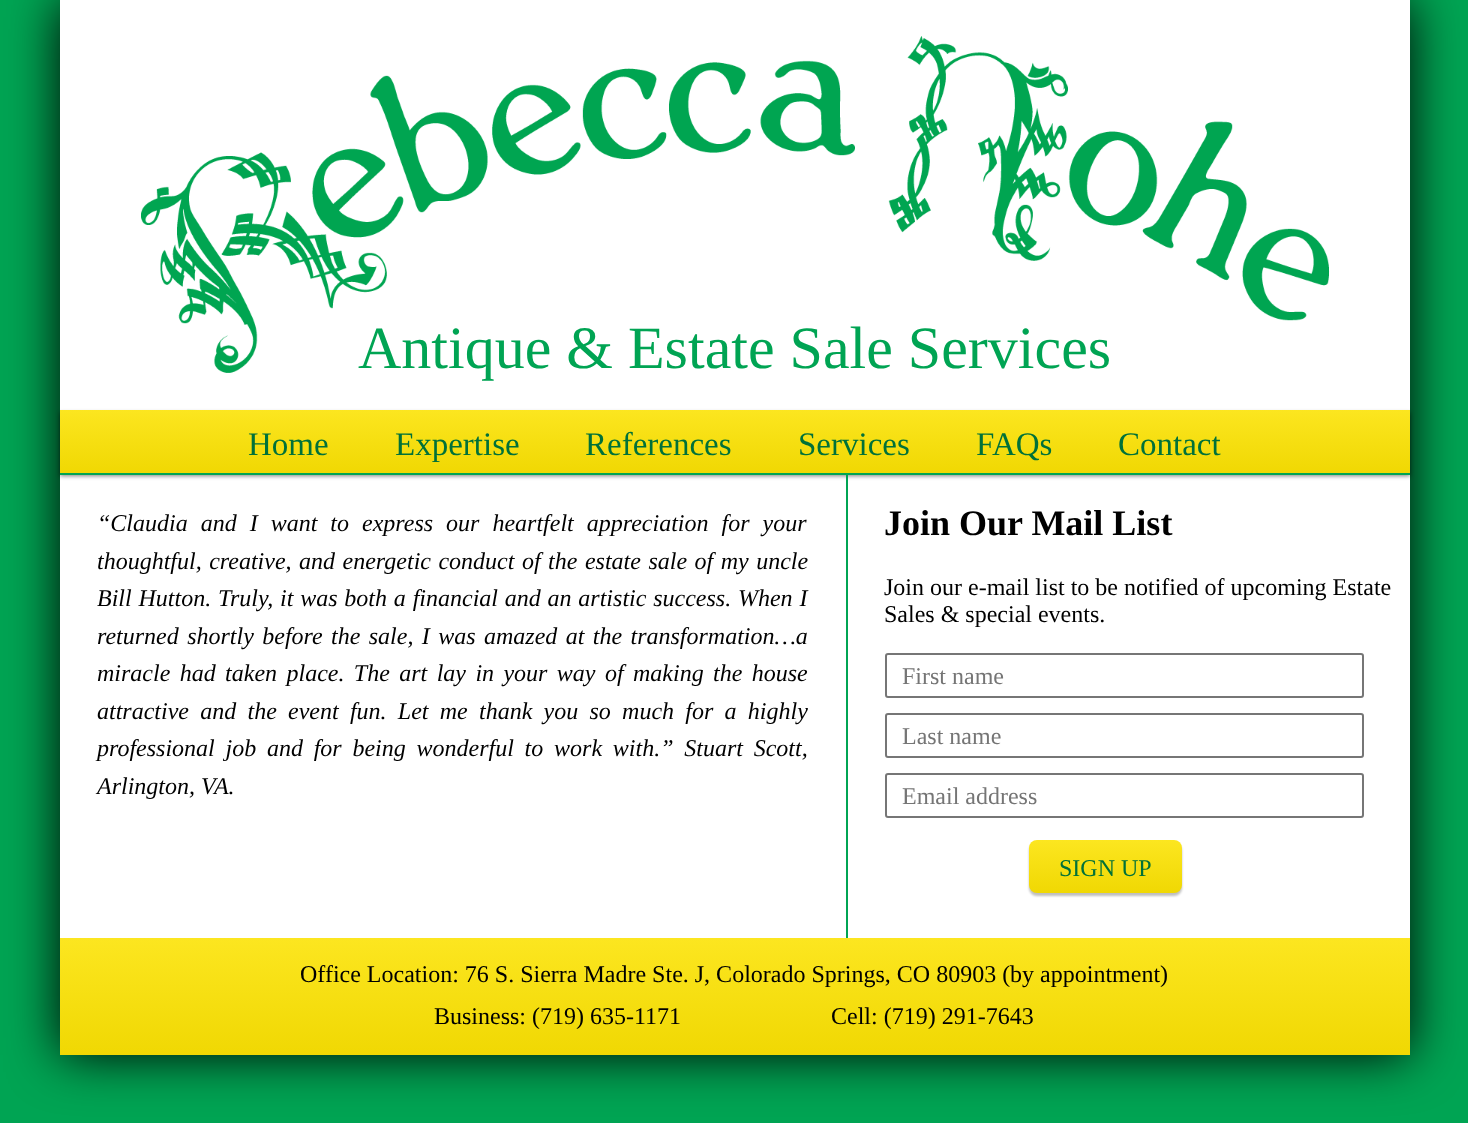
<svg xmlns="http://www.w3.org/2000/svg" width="1468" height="1123">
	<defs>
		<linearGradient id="g1" gradientUnits="userSpaceOnUse" x1="735" y1="409" x2="735" y2="473"><stop offset="0" stop-color="#FCE620" /><stop offset="1" stop-color="#F0D803" /></linearGradient>
		<linearGradient id="g2" gradientUnits="userSpaceOnUse" x1="1106" y1="840" x2="1106" y2="893"><stop offset="0" stop-color="#FCE620" /><stop offset="1" stop-color="#F0D803" /></linearGradient>
		<linearGradient id="g3" gradientUnits="userSpaceOnUse" x1="735" y1="938" x2="735" y2="1055"><stop offset="0" stop-color="#FCE620" /><stop offset="1" stop-color="#F0D803" /></linearGradient>
	</defs>
	<rect width="100%" height="100%" fill="#00A453" />
	<rect x="60" y="0" width="1350" height="1055" fill="#000000" filter="blur(26px)" />
	<rect x="60" y="0" width="1350" height="938" fill="#FFFFFF" />
	<image x="141" y="36" width="1189" height="337" href="assets/img1.png" />
	<text x="358" y="368" font-family="Liberation Serif" font-size="60" fill="#00A453">Antique &amp; Estate Sale Services</text>
	<rect x="60" y="413" width="1350" height="63" fill="#000000" fill-opacity="0.5" filter="blur(2px)" />
	<rect x="60" y="410" width="1350" height="63" fill="url(#g1)" />
	<g font-family="Liberation Serif" font-size="33" fill="#007139">
		<text x="248" y="455">Home</text>
		<text x="395" y="455">Expertise</text>
		<text x="585" y="455">References</text>
		<text x="798" y="455">Services</text>
		<text x="976" y="455">FAQs</text>
		<text x="1118" y="455">Contact</text>
	</g>
	<rect x="60" y="473" width="1350" height="2" fill="#00A453" />
	<g font-family="Liberation Serif" font-size="24" font-style="italic" fill="#000000">
		<text x="97" y="531" word-spacing="7">“Claudia and I want to express our heartfelt appreciation for your</text>
		<text x="97" y="569" word-spacing="1.5">thoughtful, creative, and energetic conduct of the estate sale of my uncle</text>
		<text x="97" y="606" word-spacing="0.8">Bill Hutton. Truly, it was both a financial and an artistic success. When I</text>
		<text x="97" y="644" word-spacing="2.4">returned shortly before the sale, I was amazed at the transformation…a</text>
		<text x="97" y="681" word-spacing="3.4">miracle had taken place. The art lay in your way of making the house</text>
		<text x="97" y="719" word-spacing="5.25">attractive and the event fun. Let me thank you so much for a highly</text>
		<text x="97" y="756" word-spacing="4.75">professional job and for being wonderful to work with.” Stuart Scott,</text>
		<text x="97" y="794">Arlington, VA.</text>
	</g>
	<rect x="846" y="474" width="2" height="464" fill="#00A453" />
	<text x="884" y="535" font-family="Liberation Serif" font-size="36" font-weight="700" fill="#000000">Join Our Mail List</text>
	<g font-family="Liberation Serif" font-size="24" fill="#000000">
		<text x="884" y="595">Join our e-mail list to be notified of upcoming Estate</text>
		<text x="884" y="622">Sales &amp; special events.</text>
	</g>
	<rect x="886" y="654" width="477" height="43" rx="2" fill="none" stroke="#767676" stroke-width="2" />
	<text x="902" y="684" font-family="Liberation Serif" font-size="24" fill="#757575">First name</text>
	<rect x="886" y="714" width="477" height="43" rx="2" fill="none" stroke="#767676" stroke-width="2" />
	<text x="902" y="744" font-family="Liberation Serif" font-size="24" fill="#757575">Last name</text>
	<rect x="886" y="774" width="477" height="43" rx="2" fill="none" stroke="#767676" stroke-width="2" />
	<text x="902" y="804" font-family="Liberation Serif" font-size="24" fill="#757575">Email address</text>
	<rect x="1029" y="843" width="153" height="53" rx="8" fill="#000000" fill-opacity="0.25" filter="blur(1px)" />
	<rect x="1029" y="840" width="153" height="53" rx="8" fill="url(#g2)" />
	<text x="1059" y="876" font-family="Liberation Serif" font-size="24" fill="#007139">SIGN UP</text>
	<rect x="60" y="938" width="1350" height="117" fill="url(#g3)" />
	<g font-family="Liberation Serif" font-size="24" fill="#000000">
		<text x="300" y="982">Office Location: 76 S. Sierra Madre Ste. J, Colorado Springs, CO 80903 (by appointment)</text>
		<text x="434" y="1024">Business: (719) 635-1171</text>
		<text x="831" y="1024">Cell: (719) 291-7643</text>
	</g>
</svg>
